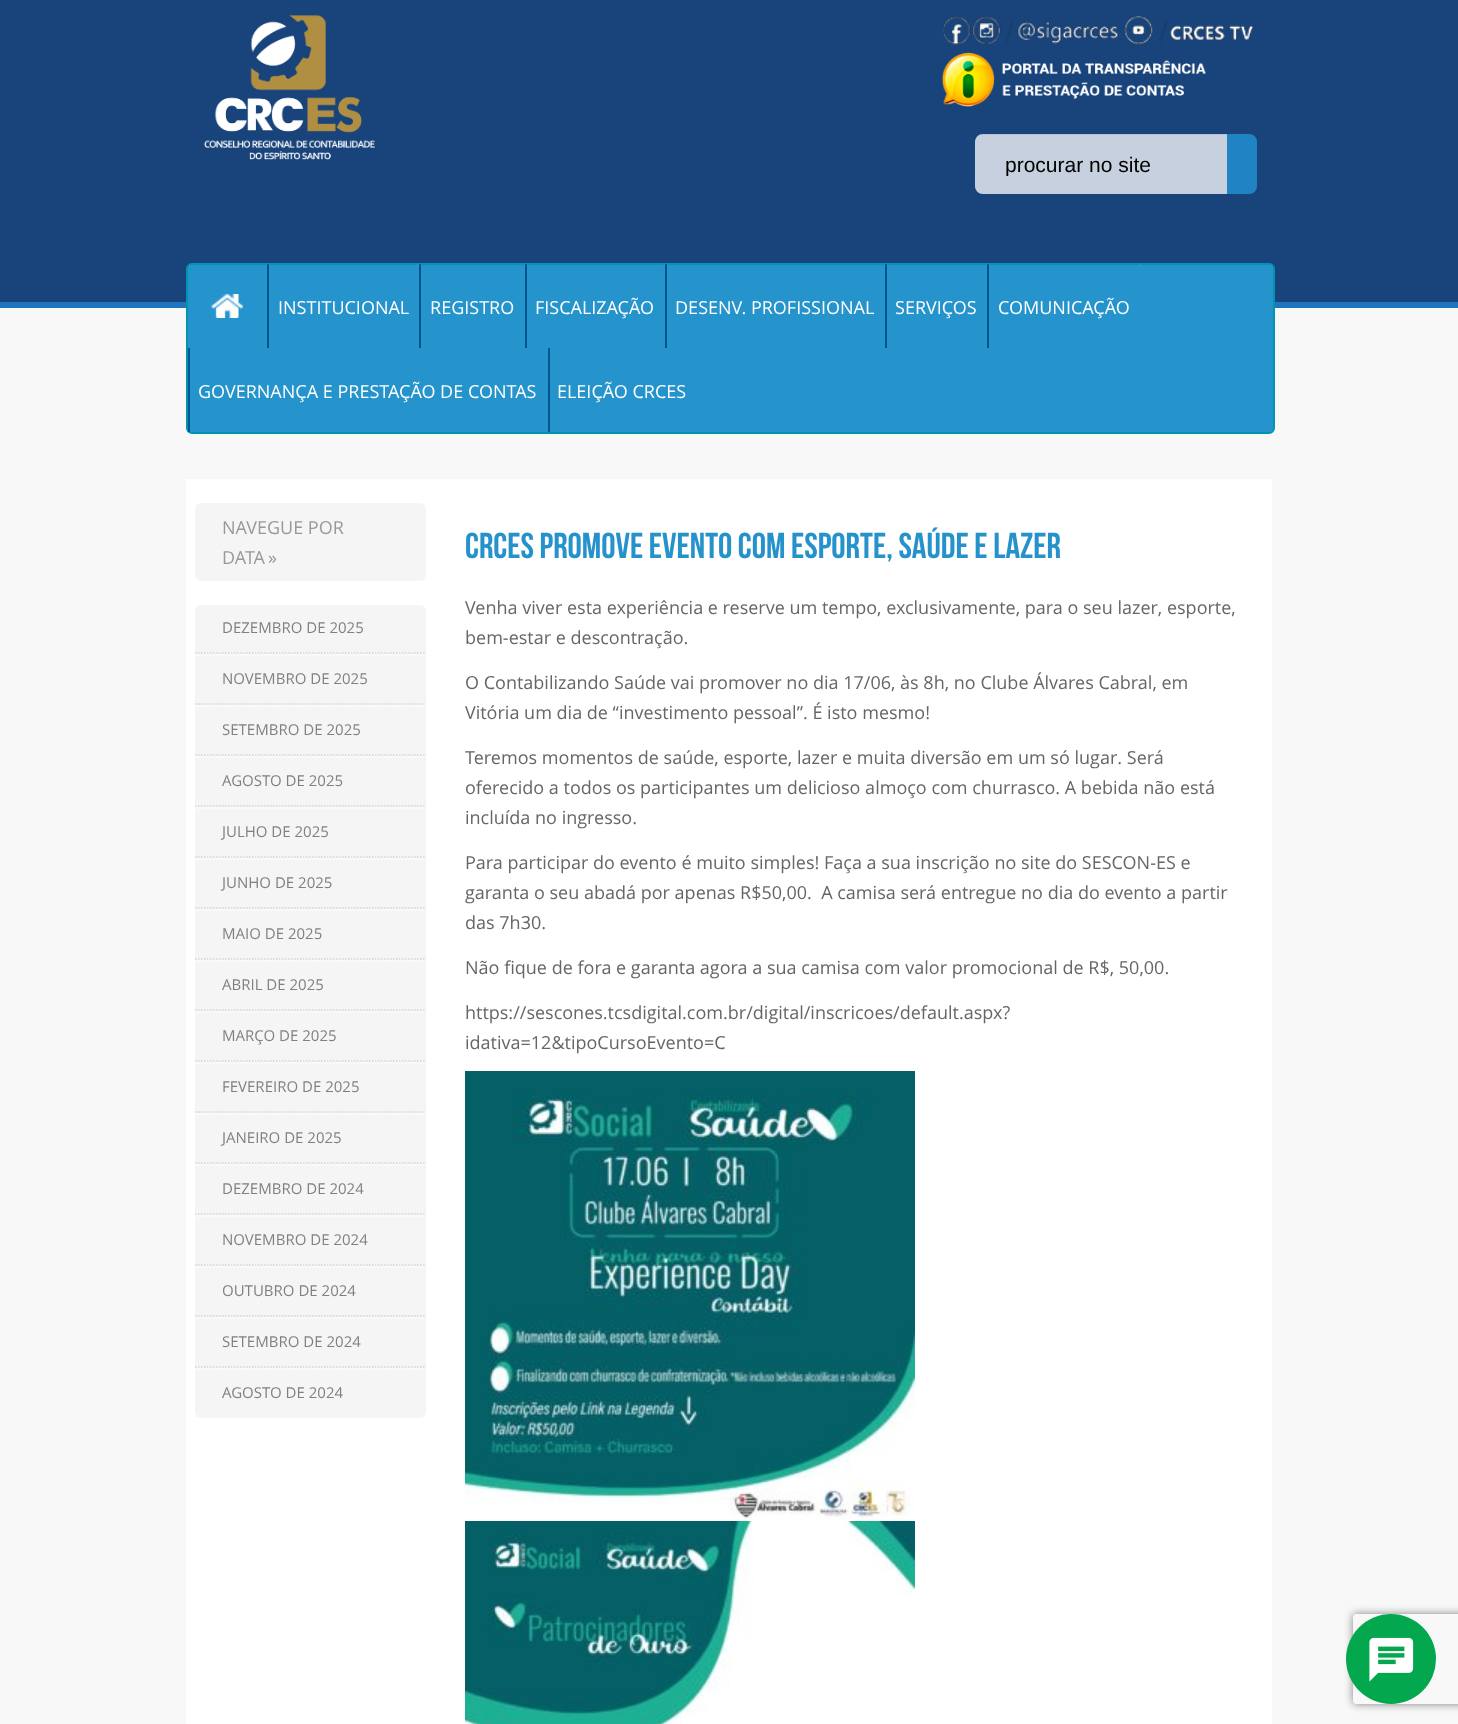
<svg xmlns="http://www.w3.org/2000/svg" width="1458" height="1724">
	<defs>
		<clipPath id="clip1"><rect x="1005" y="152" width="192" height="24" /></clipPath>
		<clipPath id="clip2"><path d="M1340 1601H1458V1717H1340ZM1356 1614H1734C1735.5 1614 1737 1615.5 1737 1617V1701C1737 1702.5 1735.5 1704 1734 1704H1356C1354.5 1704 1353 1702.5 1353 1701V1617C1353 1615.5 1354.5 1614 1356 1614Z" clip-rule="evenodd" /></clipPath>
	</defs>
	<rect width="100%" height="100%" fill="#F8F8F8" />
	<rect x="0" y="0" width="1458" height="302" fill="#19447B" />
	<rect x="0" y="302" width="1458" height="6" fill="#2076BE" />
	<image x="204" y="15" width="171" height="145" href="assets/img1.png" />
	<image x="942" y="16" width="312" height="29" href="assets/img2.png" />
	<image x="942" y="52" width="264" height="55" href="assets/img3.png" />
	<path d="M983 134H1227V194H983C978.5 194 975 190.5 975 186V142C975 137.5 978.5 134 983 134Z" fill="#C6D0DE" />
	<path d="M982 135H1227V134H983C979 134 975 138 975 142C975 138 978 135 982 135Z" fill="#000000" fill-opacity="0.07" />
	<g clip-path="url(#clip1)">
		<text x="1005" y="172" font-family="Liberation Sans" font-size="21" fill="#000000">procurar no site</text>
	</g>
	<path d="M1227 134H1249C1253.5 134 1257 137.5 1257 142V186C1257 190.5 1253.5 194 1249 194H1227Z" fill="#2084C4" />
	<rect x="187" y="264" width="1087" height="169" rx="5" fill="#2594CC" stroke="#0094B1" stroke-width="2" />
	<rect x="266" y="264" width="1" height="1" fill="#2594CC" />
	<image x="211" y="294" width="32" height="24" href="assets/img4.png" />
	<rect x="417" y="264" width="2" height="1" fill="#2594CC" />
	<rect x="267" y="264" width="2" height="84" fill="#00578F" />
	<text x="278" y="314" font-family="Open Sans" font-size="18" fill="#FFFFFF">INSTITUCIONAL</text>
	<rect x="524" y="264" width="1" height="1" fill="#2594CC" />
	<rect x="419" y="264" width="2" height="84" fill="#00578F" />
	<text x="430" y="314" font-family="Open Sans" font-size="18" fill="#FFFFFF">REGISTRO</text>
	<rect x="663" y="264" width="2" height="1" fill="#2594CC" />
	<rect x="525" y="264" width="2" height="84" fill="#00578F" />
	<text x="535" y="314" font-family="Open Sans" font-size="18" fill="#FFFFFF">FISCALIZAÇÃO</text>
	<rect x="884" y="264" width="1" height="1" fill="#2594CC" />
	<rect x="665" y="264" width="2" height="84" fill="#00578F" />
	<text x="675" y="314" font-family="Open Sans" font-size="18" fill="#FFFFFF">DESENV. PROFISSIONAL</text>
	<rect x="986" y="264" width="1" height="1" fill="#2594CC" />
	<rect x="885" y="264" width="2" height="84" fill="#00578F" />
	<text x="895" y="314" font-family="Open Sans" font-size="18" fill="#FFFFFF">SERVIÇOS</text>
	<rect x="1139" y="264" width="2" height="1" fill="#2594CC" />
	<rect x="987" y="264" width="2" height="84" fill="#00578F" />
	<text x="998" y="314" font-family="Open Sans" font-size="18" fill="#FFFFFF">COMUNICAÇÃO</text>
	<rect x="188" y="348" width="2" height="84" fill="#00578F" />
	<text x="198" y="398" font-family="Open Sans" font-size="18" fill="#FFFFFF">GOVERNANÇA E PRESTAÇÃO DE CONTAS</text>
	<rect x="548" y="348" width="2" height="84" fill="#00578F" />
	<text x="557" y="398" font-family="Open Sans" font-size="18" fill="#FFFFFF">ELEIÇÃO CRCES</text>
	<rect x="186" y="479" width="1086" height="1245" fill="#FFFFFF" />
	<rect x="195" y="503" width="231" height="78" rx="6" fill="#F5F5F5" />
	<g font-family="Open Sans" font-size="18" fill="#999999">
		<text x="222" y="534">NAVEGUE POR</text>
		<text x="222" y="564">DATA</text>
		<text x="268" y="564">»</text>
	</g>
	<rect x="195" y="605" width="231" height="813" rx="6" fill="#F5F5F5" />
	<path d="M195 653H426" fill="none" stroke="#D4D4D4" stroke-width="1.5" stroke-dasharray="1.5 1.5" />
	<text x="222" y="633" font-family="Open Sans" font-size="15" fill="#808080">DEZEMBRO DE 2025</text>
	<path d="M195 655H426" fill="none" stroke="#FFFFFF" stroke-width="1.5" stroke-dasharray="1.5 1.5" />
	<path d="M195 704H426" fill="none" stroke="#D4D4D4" stroke-width="1.5" stroke-dasharray="1.5 1.5" />
	<text x="222" y="684" font-family="Open Sans" font-size="15" fill="#808080">NOVEMBRO DE 2025</text>
	<path d="M195 706H426" fill="none" stroke="#FFFFFF" stroke-width="1.5" stroke-dasharray="1.5 1.5" />
	<path d="M195 755H426" fill="none" stroke="#D4D4D4" stroke-width="1.5" stroke-dasharray="1.5 1.5" />
	<text x="222" y="735" font-family="Open Sans" font-size="15" fill="#808080">SETEMBRO DE 2025</text>
	<path d="M195 757H426" fill="none" stroke="#FFFFFF" stroke-width="1.5" stroke-dasharray="1.5 1.5" />
	<path d="M195 806H426" fill="none" stroke="#D4D4D4" stroke-width="1.5" stroke-dasharray="1.5 1.5" />
	<text x="222" y="786" font-family="Open Sans" font-size="15" fill="#808080">AGOSTO DE 2025</text>
	<path d="M195 808H426" fill="none" stroke="#FFFFFF" stroke-width="1.5" stroke-dasharray="1.5 1.5" />
	<path d="M195 857H426" fill="none" stroke="#D4D4D4" stroke-width="1.5" stroke-dasharray="1.5 1.5" />
	<text x="222" y="837" font-family="Open Sans" font-size="15" fill="#808080">JULHO DE 2025</text>
	<path d="M195 859H426" fill="none" stroke="#FFFFFF" stroke-width="1.5" stroke-dasharray="1.5 1.5" />
	<path d="M195 908H426" fill="none" stroke="#D4D4D4" stroke-width="1.5" stroke-dasharray="1.5 1.5" />
	<text x="222" y="888" font-family="Open Sans" font-size="15" fill="#808080">JUNHO DE 2025</text>
	<path d="M195 910H426" fill="none" stroke="#FFFFFF" stroke-width="1.5" stroke-dasharray="1.5 1.5" />
	<path d="M195 959H426" fill="none" stroke="#D4D4D4" stroke-width="1.5" stroke-dasharray="1.5 1.5" />
	<text x="222" y="939" font-family="Open Sans" font-size="15" fill="#808080">MAIO DE 2025</text>
	<path d="M195 961H426" fill="none" stroke="#FFFFFF" stroke-width="1.5" stroke-dasharray="1.5 1.5" />
	<path d="M195 1010H426" fill="none" stroke="#D4D4D4" stroke-width="1.5" stroke-dasharray="1.5 1.5" />
	<text x="222" y="990" font-family="Open Sans" font-size="15" fill="#808080">ABRIL DE 2025</text>
	<path d="M195 1012H426" fill="none" stroke="#FFFFFF" stroke-width="1.5" stroke-dasharray="1.5 1.5" />
	<path d="M195 1061H426" fill="none" stroke="#D4D4D4" stroke-width="1.5" stroke-dasharray="1.5 1.5" />
	<text x="222" y="1041" font-family="Open Sans" font-size="15" fill="#808080">MARÇO DE 2025</text>
	<path d="M195 1063H426" fill="none" stroke="#FFFFFF" stroke-width="1.5" stroke-dasharray="1.5 1.5" />
	<path d="M195 1112H426" fill="none" stroke="#D4D4D4" stroke-width="1.5" stroke-dasharray="1.5 1.5" />
	<text x="222" y="1092" font-family="Open Sans" font-size="15" fill="#808080">FEVEREIRO DE 2025</text>
	<path d="M195 1114H426" fill="none" stroke="#FFFFFF" stroke-width="1.5" stroke-dasharray="1.5 1.5" />
	<path d="M195 1163H426" fill="none" stroke="#D4D4D4" stroke-width="1.5" stroke-dasharray="1.5 1.5" />
	<text x="222" y="1143" font-family="Open Sans" font-size="15" fill="#808080">JANEIRO DE 2025</text>
	<path d="M195 1165H426" fill="none" stroke="#FFFFFF" stroke-width="1.5" stroke-dasharray="1.5 1.5" />
	<path d="M195 1214H426" fill="none" stroke="#D4D4D4" stroke-width="1.5" stroke-dasharray="1.5 1.5" />
	<text x="222" y="1194" font-family="Open Sans" font-size="15" fill="#808080">DEZEMBRO DE 2024</text>
	<path d="M195 1216H426" fill="none" stroke="#FFFFFF" stroke-width="1.5" stroke-dasharray="1.5 1.5" />
	<path d="M195 1265H426" fill="none" stroke="#D4D4D4" stroke-width="1.5" stroke-dasharray="1.5 1.5" />
	<text x="222" y="1245" font-family="Open Sans" font-size="15" fill="#808080">NOVEMBRO DE 2024</text>
	<path d="M195 1267H426" fill="none" stroke="#FFFFFF" stroke-width="1.5" stroke-dasharray="1.5 1.5" />
	<path d="M195 1316H426" fill="none" stroke="#D4D4D4" stroke-width="1.5" stroke-dasharray="1.5 1.5" />
	<text x="222" y="1296" font-family="Open Sans" font-size="15" fill="#808080">OUTUBRO DE 2024</text>
	<path d="M195 1318H426" fill="none" stroke="#FFFFFF" stroke-width="1.5" stroke-dasharray="1.5 1.5" />
	<path d="M195 1367H426" fill="none" stroke="#D4D4D4" stroke-width="1.5" stroke-dasharray="1.5 1.5" />
	<text x="222" y="1347" font-family="Open Sans" font-size="15" fill="#808080">SETEMBRO DE 2024</text>
	<path d="M195 1369H426" fill="none" stroke="#FFFFFF" stroke-width="1.5" stroke-dasharray="1.5 1.5" />
	<text x="222" y="1398" font-family="Open Sans" font-size="15" fill="#808080">AGOSTO DE 2024</text>
	<text x="465" y="558" font-family="Bebas Neue" font-size="36" fill="#2592CB">CRCES PROMOVE EVENTO COM ESPORTE, SAÚDE E LAZER</text>
	<g font-family="Open Sans" font-size="18" fill="#666666">
		<text x="465" y="614">Venha viver esta experiência e reserve um tempo, exclusivamente, para o seu lazer, esporte,</text>
		<text x="465" y="644">bem-estar e descontração.</text>
		<text x="465" y="689">O Contabilizando Saúde vai promover no dia 17/06, às 8h, no Clube Álvares Cabral, em</text>
		<text x="465" y="719">Vitória um dia de “investimento pessoal”. É isto mesmo!</text>
		<text x="465" y="764">Teremos momentos de saúde, esporte, lazer e muita diversão em um só lugar. Será</text>
		<text x="465" y="794">oferecido a todos os participantes um delicioso almoço com churrasco. A bebida não está</text>
		<text x="465" y="824">incluída no ingresso.</text>
		<text x="465" y="869">Para participar do evento é muito simples! Faça a sua inscrição no site do SESCON-ES e</text>
		<text x="465" y="899" xml:space="preserve">garanta o seu abadá por apenas R$50,00.  A camisa será entregue no dia do evento a partir</text>
		<text x="465" y="929">das 7h30.</text>
		<text x="465" y="974">Não fique de fora e garanta agora a sua camisa com valor promocional de R$, 50,00.</text>
		<text x="465" y="1019">https://sescones.tcsdigital.com.br/digital/inscricoes/default.aspx?</text>
		<text x="465" y="1049">idativa=12&amp;tipoCursoEvento=C</text>
	</g>
	<image x="465" y="1071" width="450" height="450" href="assets/img5.png" />
	<image x="465" y="1521" width="450" height="203" href="assets/img6.png" />
	<g clip-path="url(#clip2)">
		<rect x="1353" y="1614" width="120" height="90" rx="3" fill="#808080" filter="blur(4px)" />
	</g>
	<circle cx="1391" cy="1659" r="45" fill="#03A84E" />
	<image x="1369" y="1637" width="45" height="45" href="assets/img7.png" />
</svg>
